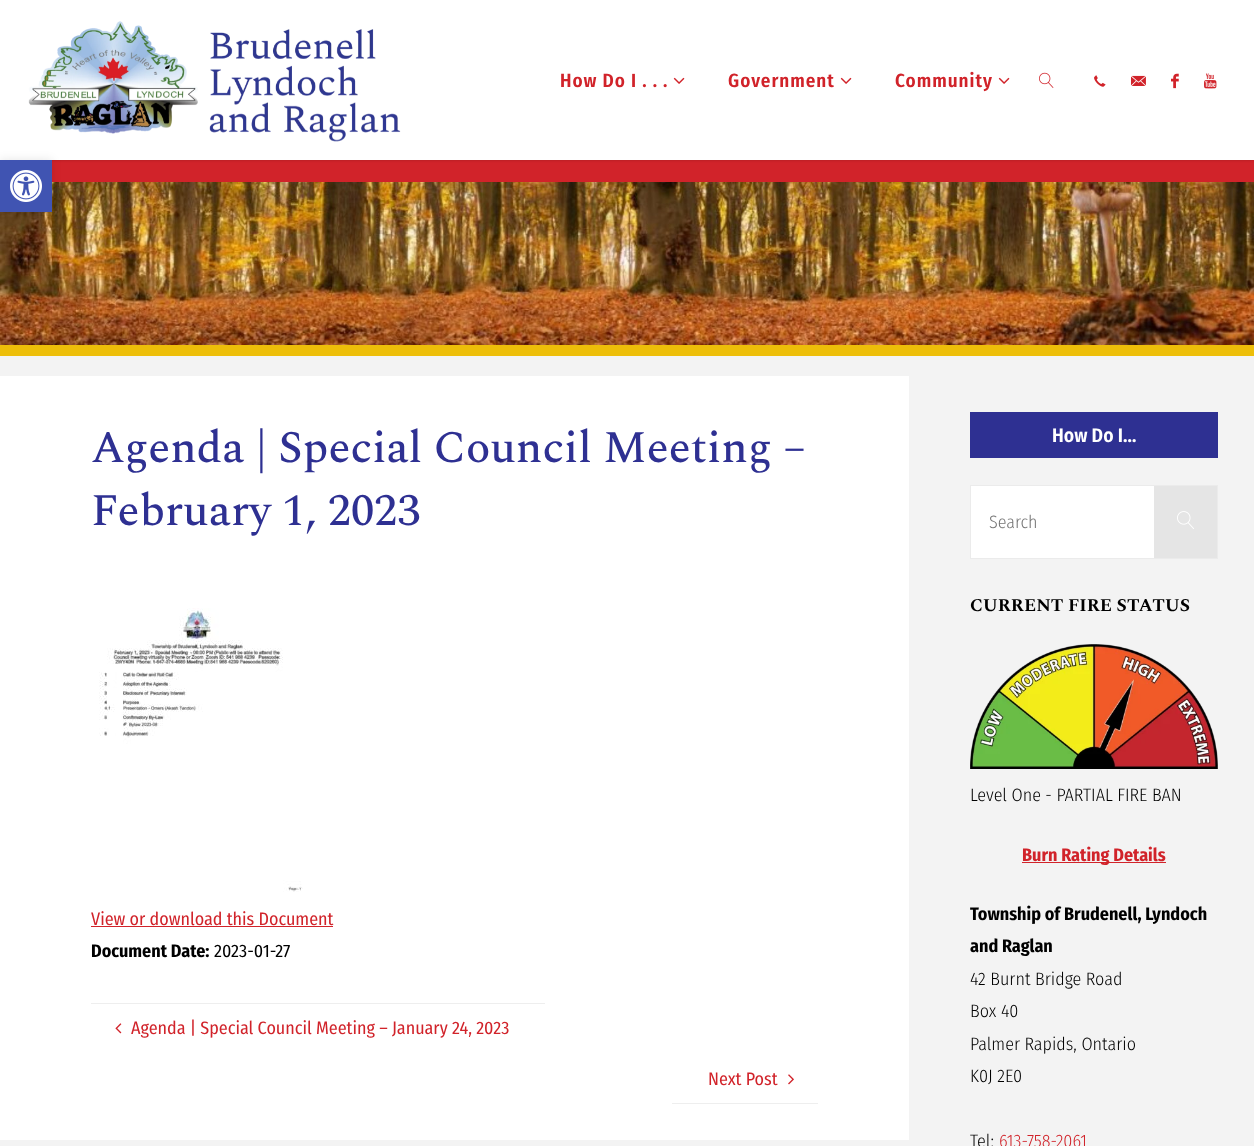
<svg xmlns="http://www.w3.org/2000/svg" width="1254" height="1146">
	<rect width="100%" height="100%" fill="#F3F3F3" />
	<rect x="52" y="160" width="1202" height="22" fill="#D1232A" />
	<rect x="0" y="0" width="1254" height="160" fill="#000000" fill-opacity="0.2" filter="blur(1.5px)" />
	<rect x="0" y="0" width="1254" height="160" fill="#FFFFFF" />
	<image x="0" y="182" width="1254" height="163" href="assets/img9.png" />
	<rect x="0" y="160" width="52" height="52" fill="#000000" fill-opacity="0.1" filter="blur(5px)" />
	<rect x="0" y="160" width="52" height="52" fill="#4054B2" />
	<image x="10" y="170" width="32" height="32" href="assets/img1.png" />
	<image x="28" y="21" width="373" height="121" href="assets/img2.png" />
	<text x="560" y="87" font-family="Fira Sans Condensed" font-size="19" font-weight="600" letter-spacing="1" fill="#D1232A">How Do I . . .</text>
	<image x="673" y="77" width="12" height="7" href="assets/img3.png" />
	<text x="728" y="87" font-family="Fira Sans Condensed" font-size="19" font-weight="600" letter-spacing="1" fill="#D1232A">Government</text>
	<image x="840" y="77" width="12" height="7" href="assets/img3.png" />
	<text x="895" y="87" font-family="Fira Sans Condensed" font-size="19" font-weight="600" letter-spacing="1" fill="#D1232A">Community</text>
	<image x="998" y="77" width="12" height="7" href="assets/img3.png" />
	<image x="1039" y="72" width="15" height="16" href="assets/img4.png" />
	<image x="1094" y="75" width="12" height="12" href="assets/img5.png" />
	<image x="1131" y="75" width="15" height="11" href="assets/img6.png" />
	<image x="1171" y="73" width="8" height="16" href="assets/img7.png" />
	<image x="1204" y="73" width="13" height="16" href="assets/img8.png" />
	<rect x="0" y="345" width="1254" height="11" fill="#EDBE09" />
	<rect x="0" y="376" width="909" height="764" fill="#FFFFFF" />
	<g font-family="Spectral" font-size="45" font-weight="500" fill="#2E3092">
		<text x="91" y="462">Agenda | Special Council Meeting –</text>
		<text x="91" y="525">February 1, 2023</text>
	</g>
	<image x="99" y="608" width="204" height="284" href="assets/img10.png" />
	<text x="91" y="925" font-family="Fira Sans Condensed" font-size="18" fill="#D1232A">View or download this Document</text>
	<rect x="91" y="926" width="242" height="1" fill="#D1232A" />
	<text x="91" y="957" font-family="Fira Sans Condensed" font-size="18" font-weight="700" fill="#000000">Document Date:</text>
	<text x="214" y="957" font-family="Fira Sans Condensed" font-size="18" fill="#000000">2023-01-27</text>
	<rect x="91" y="1003" width="454" height="1" fill="#EEEEEE" />
	<image x="115" y="1023" width="7" height="11" href="assets/img11.png" />
	<g font-family="Fira Sans Condensed" font-size="18" fill="#D1232A">
		<text x="131" y="1034">Agenda | Special Council Meeting – January 24, 2023</text>
		<text x="708" y="1085">Next Post</text>
	</g>
	<image x="788" y="1074" width="6" height="11" href="assets/img12.png" />
	<rect x="672" y="1103" width="146" height="1" fill="#EEEEEE" />
	<rect x="970" y="412" width="248" height="46" fill="#2E3092" />
	<text x="1052" y="442" font-family="Fira Sans Condensed" font-size="19.5" font-weight="600" fill="#FFFFFF">How Do I…</text>
	<rect x="971" y="486" width="183" height="72" fill="#FFFFFF" />
	<rect x="970.5" y="485.5" width="247" height="73" fill="none" stroke="#EBEBEB" />
	<rect x="1154" y="486" width="63" height="72" fill="#E5E5E5" />
	<text x="989" y="528" font-family="Fira Sans Condensed" font-size="18" font-weight="300" fill="#757575">Search</text>
	<image x="1177" y="511" width="17" height="18" href="assets/img13.png" />
	<text x="970" y="611" font-family="Spectral" font-size="18" font-weight="700" fill="#000000">CURRENT FIRE STATUS</text>
	<image x="970" y="644" width="248" height="125" href="assets/img14.png" />
	<text x="970" y="801" font-family="Fira Sans Condensed" font-size="18" font-weight="300" fill="#000000">Level One - PARTIAL FIRE BAN</text>
	<rect x="1022" y="862" width="144" height="1" fill="#D1232A" />
	<text x="1022" y="861" font-family="Fira Sans Condensed" font-size="18" font-weight="700" fill="#D1232A">Burn Rating Details</text>
	<g font-family="Fira Sans Condensed" font-size="18" font-weight="700" fill="#000000">
		<text x="970" y="920">Township of Brudenell, Lyndoch</text>
		<text x="970" y="952">and Raglan</text>
	</g>
	<g font-family="Fira Sans Condensed" font-size="18" font-weight="300" fill="#000000">
		<text x="970" y="985">42 Burnt Bridge Road</text>
		<text x="970" y="1017">Box 40</text>
		<text x="970" y="1050">Palmer Rapids, Ontario</text>
		<text x="970" y="1082">K0J 2E0</text>
		<text x="970" y="1147">Tel:</text>
	</g>
	<text x="999" y="1147" font-family="Fira Sans Condensed" font-size="18" font-weight="300" fill="#D1232A">613-758-2061</text>
</svg>
